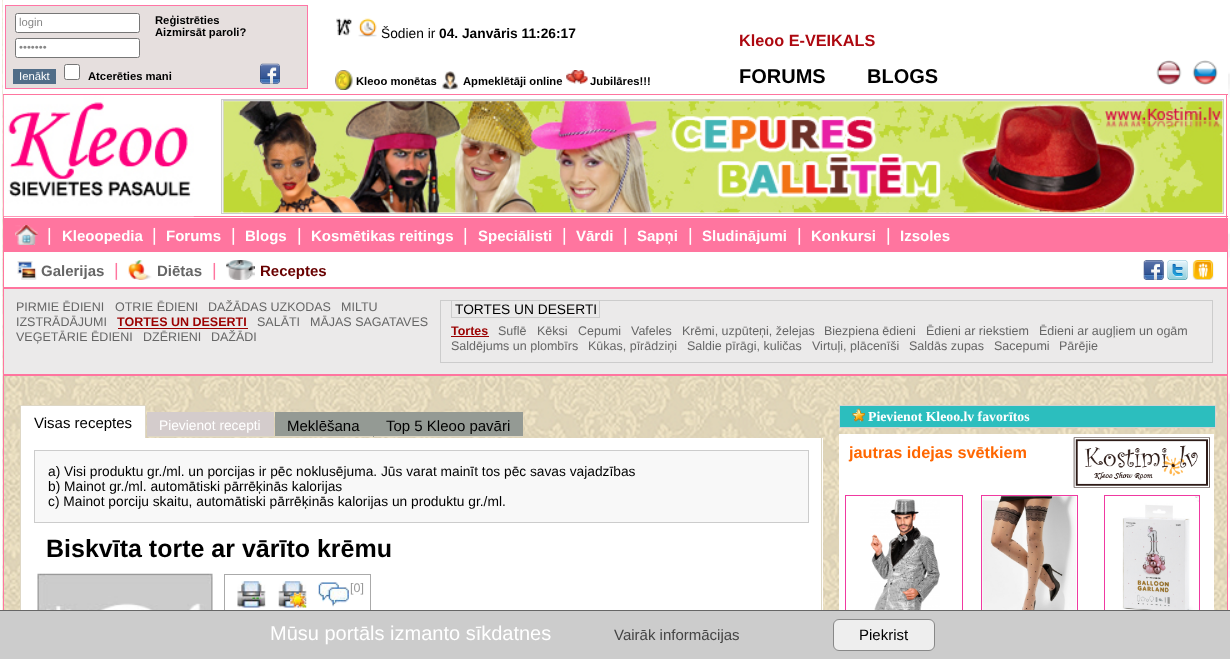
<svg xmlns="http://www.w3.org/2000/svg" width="1230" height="659">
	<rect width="100%" height="100%" fill="#FFFFFF" />
	<image x="2" y="72" width="1228" height="507" href="assets/img1.png" />
	<image x="2" y="0" width="1225" height="610" href="assets/img2.png" />
	<rect x="3" y="0" width="1225" height="94" fill="#FFFFFF" />
	<rect x="5.5" y="5.5" width="302" height="83" fill="#E6DFDE" stroke="#FF75A5" />
	<rect x="15.5" y="13.5" width="124" height="19" rx="2" fill="#FFFFFF" stroke="#767676" />
	<text x="19" y="26" font-family="Liberation Sans" font-size="11.25" fill="#888888">login</text>
	<g font-family="Liberation Sans" font-size="11.25" font-weight="700" fill="#000000">
		<text x="155" y="24">Reģistrēties</text>
		<text x="155" y="36">Aizmirsāt paroli?</text>
	</g>
	<rect x="15.5" y="38.5" width="124" height="19" rx="2" fill="#FFFFFF" stroke="#767676" />
	<text x="19" y="51" font-family="Liberation Sans" font-size="11.25" fill="#888888">•••••••</text>
	<rect x="13" y="69" width="43" height="15" fill="#516D88" />
	<text x="19" y="80" font-family="Liberation Sans" font-size="11.25" fill="#FFFFFF">Ienākt</text>
	<rect x="64.5" y="64.5" width="15" height="15" rx="2" fill="#FFFFFF" stroke="#767676" />
	<text x="88" y="80" font-family="Liberation Sans" font-size="11.25" font-weight="700" fill="#000000">Atcerēties mani</text>
	<image x="260" y="63" width="20" height="21" href="assets/img3.png" />
	<image x="336" y="18" width="16" height="18" href="assets/img4.png" />
	<image x="358" y="18" width="19" height="19" href="assets/img5.png" />
	<text x="381" y="38" font-family="Liberation Sans" font-size="13.75" fill="#000000">Šodien ir</text>
	<text x="439" y="38" font-family="Liberation Sans" font-size="13.75" font-weight="700" fill="#000000">04. Janvāris 11:26:17</text>
	<image x="335" y="70" width="18" height="20" href="assets/img6.png" />
	<text x="356" y="85" font-family="Liberation Sans" font-size="11.25" font-weight="700" fill="#000000">Kleoo monētas</text>
	<image x="441" y="71" width="18" height="19" href="assets/img7.png" />
	<text x="463" y="85" font-family="Liberation Sans" font-size="11.25" font-weight="700" fill="#000000">Apmeklētāji online</text>
	<image x="566" y="70" width="22" height="15" href="assets/img8.png" />
	<text x="590" y="85" font-family="Liberation Sans" font-size="11.25" font-weight="700" fill="#000000">Jubilāres!!!</text>
	<text x="739" y="46" font-family="Liberation Sans" font-size="16.25" font-weight="700" fill="#AD0810">Kleoo E-VEIKALS</text>
	<g font-family="Liberation Sans" font-size="20" font-weight="700" fill="#000000">
		<text x="739" y="83">FORUMS</text>
		<text x="867" y="83">BLOGS</text>
	</g>
	<image x="1156" y="60" width="26" height="25" href="assets/img9.png" />
	<image x="1192" y="60" width="26" height="25" href="assets/img10.png" />
	<rect x="4" y="95" width="1224" height="123" fill="#FFFFFF" />
	<rect x="3" y="94" width="1225" height="1" fill="#FF759F" />
	<rect x="1226" y="94" width="1" height="124" fill="#FF759F" />
	<rect x="3" y="216" width="1225" height="1" fill="#FF759F" />
	<rect x="3" y="94" width="1" height="124" fill="#FF759F" />
	<image x="3" y="95" width="191" height="122" href="assets/img11.png" />
	<rect x="221.5" y="99.5" width="1002" height="114" fill="none" stroke="#CCCCCC" />
	<image x="222" y="100" width="1001" height="113" href="assets/img12.png" />
	<rect x="3" y="218" width="1225" height="33" fill="#FF759F" />
	<image x="15" y="225" width="23" height="20" href="assets/img13.png" />
	<text x="47" y="241" font-family="Liberation Sans" font-size="18" fill="#FFFFFF">|</text>
	<text x="62" y="241" font-family="Liberation Sans" font-size="15" font-weight="700" fill="#FFFFFF">Kleoopedia</text>
	<text x="152" y="241" font-family="Liberation Sans" font-size="18" fill="#FFFFFF">|</text>
	<text x="166" y="241" font-family="Liberation Sans" font-size="15" font-weight="700" fill="#FFFFFF">Forums</text>
	<text x="231" y="241" font-family="Liberation Sans" font-size="18" fill="#FFFFFF">|</text>
	<text x="245" y="241" font-family="Liberation Sans" font-size="15" font-weight="700" fill="#FFFFFF">Blogs</text>
	<text x="297" y="241" font-family="Liberation Sans" font-size="18" fill="#FFFFFF">|</text>
	<text x="311" y="241" font-family="Liberation Sans" font-size="15" font-weight="700" fill="#FFFFFF">Kosmētikas reitings</text>
	<text x="463" y="241" font-family="Liberation Sans" font-size="18" fill="#FFFFFF">|</text>
	<text x="478" y="241" font-family="Liberation Sans" font-size="15" font-weight="700" fill="#FFFFFF">Speciālisti</text>
	<text x="562" y="241" font-family="Liberation Sans" font-size="18" fill="#FFFFFF">|</text>
	<text x="576" y="241" font-family="Liberation Sans" font-size="15" font-weight="700" fill="#FFFFFF">Vārdi</text>
	<text x="623" y="241" font-family="Liberation Sans" font-size="18" fill="#FFFFFF">|</text>
	<text x="637" y="241" font-family="Liberation Sans" font-size="15" font-weight="700" fill="#FFFFFF">Sapņi</text>
	<text x="688" y="241" font-family="Liberation Sans" font-size="18" fill="#FFFFFF">|</text>
	<text x="702" y="241" font-family="Liberation Sans" font-size="15" font-weight="700" fill="#FFFFFF">Sludinājumi</text>
	<text x="797" y="241" font-family="Liberation Sans" font-size="18" fill="#FFFFFF">|</text>
	<text x="811" y="241" font-family="Liberation Sans" font-size="15" font-weight="700" fill="#FFFFFF">Konkursi</text>
	<text x="886" y="241" font-family="Liberation Sans" font-size="18" fill="#FFFFFF">|</text>
	<text x="900" y="241" font-family="Liberation Sans" font-size="15" font-weight="700" fill="#FFFFFF">Izsoles</text>
	<rect x="3.5" y="251.5" width="1224" height="36" fill="#FFFFFF" stroke="#FF759F" />
	<image x="17" y="261" width="20" height="19" href="assets/img14.png" />
	<text x="41" y="276" font-family="Liberation Sans" font-size="15" font-weight="700" fill="#666666">Galerijas</text>
	<text x="114" y="276" font-family="Liberation Sans" font-size="18" fill="#FF759F">|</text>
	<image x="128" y="260" width="24" height="20" href="assets/img15.png" />
	<text x="157" y="276" font-family="Liberation Sans" font-size="15" font-weight="700" fill="#666666">Diētas</text>
	<text x="212" y="276" font-family="Liberation Sans" font-size="18" fill="#FF759F">|</text>
	<image x="226" y="260" width="29" height="20" href="assets/img16.png" />
	<text x="260" y="276" font-family="Liberation Sans" font-size="15" font-weight="700" fill="#680000">Receptes</text>
	<image x="1143" y="260" width="21" height="20" href="assets/img17.png" />
	<image x="1167" y="260" width="21" height="20" href="assets/img18.png" />
	<image x="1192" y="260" width="22" height="20" href="assets/img19.png" />
	<rect x="3.5" y="288.5" width="1224" height="86" fill="#EBEAEA" stroke="#FF759F" />
	<g font-family="Liberation Sans" font-size="12.5" fill="#666666">
		<text x="16" y="311">PIRMIE ĒDIENI</text>
		<text x="115" y="311">OTRIE ĒDIENI</text>
		<text x="208" y="311">DAŽĀDAS UZKODAS</text>
		<text x="341" y="311">MILTU</text>
	</g>
	<rect x="440.5" y="300.5" width="772" height="62" fill="none" stroke="#CCCCCC" />
	<rect x="451.5" y="300.5" width="148" height="17" fill="none" stroke="#CCCCCC" />
	<text x="455" y="314" font-family="Liberation Sans" font-size="13.75" fill="#000000">TORTES UN DESERTI</text>
	<text x="451" y="335" font-family="Liberation Sans" font-size="12.5" font-weight="700" fill="#9B0000">Tortes</text>
	<rect x="451" y="336" width="38" height="1" fill="#9B0000" />
	<g font-family="Liberation Sans" font-size="12.5" fill="#666666">
		<text x="498" y="335">Suflē</text>
		<text x="537" y="335">Kēksi</text>
		<text x="578" y="335">Cepumi</text>
		<text x="631" y="335">Vafeles</text>
		<text x="682" y="335">Krēmi, uzpūteņi, želejas</text>
		<text x="824" y="335">Biezpiena ēdieni</text>
		<text x="926" y="335">Ēdieni ar riekstiem</text>
		<text x="1039" y="335">Ēdieni ar augļiem un ogām</text>
		<text x="451" y="350">Saldējums un plombīrs</text>
		<text x="588" y="350">Kūkas, pīrādziņi</text>
		<text x="687" y="350">Saldie pīrāgi, kuličas</text>
		<text x="812" y="350">Virtuļi, plācenīši</text>
		<text x="909" y="350">Saldās zupas</text>
		<text x="994" y="350">Sacepumi</text>
		<text x="1059" y="350">Pārējie</text>
		<text x="16" y="326">IZSTRĀDĀJUMI</text>
	</g>
	<text x="117" y="326" font-family="Liberation Sans" font-size="12.5" font-weight="700" fill="#9B0000">TORTES UN DESERTI</text>
	<rect x="118" y="328" width="130" height="1" fill="#9B0000" />
	<g font-family="Liberation Sans" font-size="12.5" fill="#666666">
		<text x="257" y="326">SALĀTI</text>
		<text x="310" y="326">MĀJAS SAGATAVES</text>
		<text x="16" y="341">VEĢETĀRIE ĒDIENI</text>
		<text x="143" y="341">DZĒRIENI</text>
		<text x="211" y="341">DAŽĀDI</text>
	</g>
	<rect x="3.5" y="375.5" width="1224" height="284" fill="none" stroke="#FF759F" />
	<rect x="21" y="406" width="124" height="32" fill="#FFFFFF" />
	<rect x="20" y="405" width="126" height="1" fill="#DED7C5" />
	<rect x="145" y="405" width="1" height="33" fill="#DED7C5" />
	<rect x="20" y="405" width="1" height="33" fill="#DED7C5" />
	<text x="34" y="428" font-family="Liberation Sans" font-size="15" fill="#000000">Visas receptes</text>
	<rect x="147" y="412" width="127" height="25" fill="#D4CCCC" />
	<rect x="148" y="436" width="126" height="1" fill="#DED7C5" />
	<text x="159" y="430" font-family="Liberation Sans" font-size="13.75" fill="#FFFFFF">Pievienot recepti</text>
	<rect x="275" y="412" width="98" height="24" fill="#949A94" />
	<rect x="275" y="436" width="98" height="1" fill="#DED7C5" />
	<text x="287" y="431" font-family="Liberation Sans" font-size="15" fill="#000000">Meklēšana</text>
	<rect x="373" y="412" width="150" height="25" fill="#949A94" />
	<rect x="374" y="436" width="149" height="1" fill="#DED7C5" />
	<text x="386" y="431" font-family="Liberation Sans" font-size="15" fill="#000000">Top 5 Kleoo pavāri</text>
	<rect x="21" y="438" width="802" height="172" fill="#FFFFFF" />
	<rect x="821" y="438" width="1" height="172" fill="#DED7C5" />
	<rect x="20" y="438" width="1" height="172" fill="#DED7C5" />
	<rect x="34.5" y="450.5" width="774" height="72" fill="#F8F8F8" stroke="#CCCCCC" />
	<g font-family="Liberation Sans" font-size="13.75" fill="#000000">
		<text x="48" y="476">a) Visi produktu gr./ml. un porcijas ir pēc noklusējuma. Jūs varat mainīt tos pēc savas vajadzības</text>
		<text x="48" y="491">b) Mainot gr./ml. automātiski pārrēķinās kalorijas</text>
		<text x="48" y="506">c) Mainot porciju skaitu, automātiski pārrēķinās kalorijas un produktu gr./ml.</text>
	</g>
	<text x="46" y="557" font-family="Liberation Sans" font-size="25" font-weight="700" fill="#000000">Biskvīta torte ar vārīto krēmu</text>
	<image x="37" y="573" width="176" height="37" href="assets/img20.png" />
	<rect x="224.5" y="574.5" width="146" height="40" fill="none" stroke="#AAAAAA" />
	<image x="237" y="581" width="29" height="27" href="assets/img21.png" />
	<image x="278" y="581" width="29" height="27" href="assets/img22.png" />
	<image x="318" y="582" width="31" height="25" href="assets/img23.png" />
	<text x="350" y="592" font-family="Liberation Sans" font-size="12.5" fill="#999999">[0]</text>
	<rect x="839.5" y="405.5" width="376" height="22" fill="#2CBEBE" stroke="#D2D2D2" />
	<image x="852" y="408" width="13" height="14" href="assets/img24.png" />
	<text x="868" y="421" font-family="Liberation Serif" font-size="13.75" font-weight="700" fill="#FFFFFF">Pievienot Kleoo.lv favorītos</text>
	<rect x="839" y="434" width="375" height="176" fill="#FFFFFF" />
	<text x="849" y="458" font-family="Liberation Sans" font-size="16.25" font-weight="700" fill="#FF6600">jautras idejas svētkiem</text>
	<image x="1073" y="437" width="137" height="51" href="assets/img25.png" />
	<rect x="845.5" y="495.5" width="117" height="127" fill="none" stroke="#F039A1" />
	<image x="870" y="499" width="70" height="111" href="assets/img26.png" />
	<rect x="981.5" y="495.5" width="96" height="127" fill="none" stroke="#F039A1" />
	<image x="982" y="496" width="95" height="114" href="assets/img27.png" />
	<rect x="1104.5" y="495.5" width="95" height="127" fill="none" stroke="#F039A1" />
	<image x="1122" y="496" width="77" height="114" href="assets/img28.png" />
	<rect x="0" y="611" width="1230" height="48" fill="#CCCCCC" />
	<rect x="0" y="610" width="1230" height="1" fill="#666666" />
	<text x="270" y="640" font-family="Liberation Sans" font-size="20" fill="#FFFFFF">Mūsu portāls izmanto sīkdatnes</text>
	<text x="614" y="640" font-family="Liberation Sans" font-size="15" fill="#444444">Vairāk informācijas</text>
	<rect x="833.5" y="619.5" width="101" height="31" rx="5.5" fill="#EEEEEE" stroke="#888888" />
	<text x="859" y="640" font-family="Liberation Sans" font-size="15" fill="#000000">Piekrist</text>
</svg>
